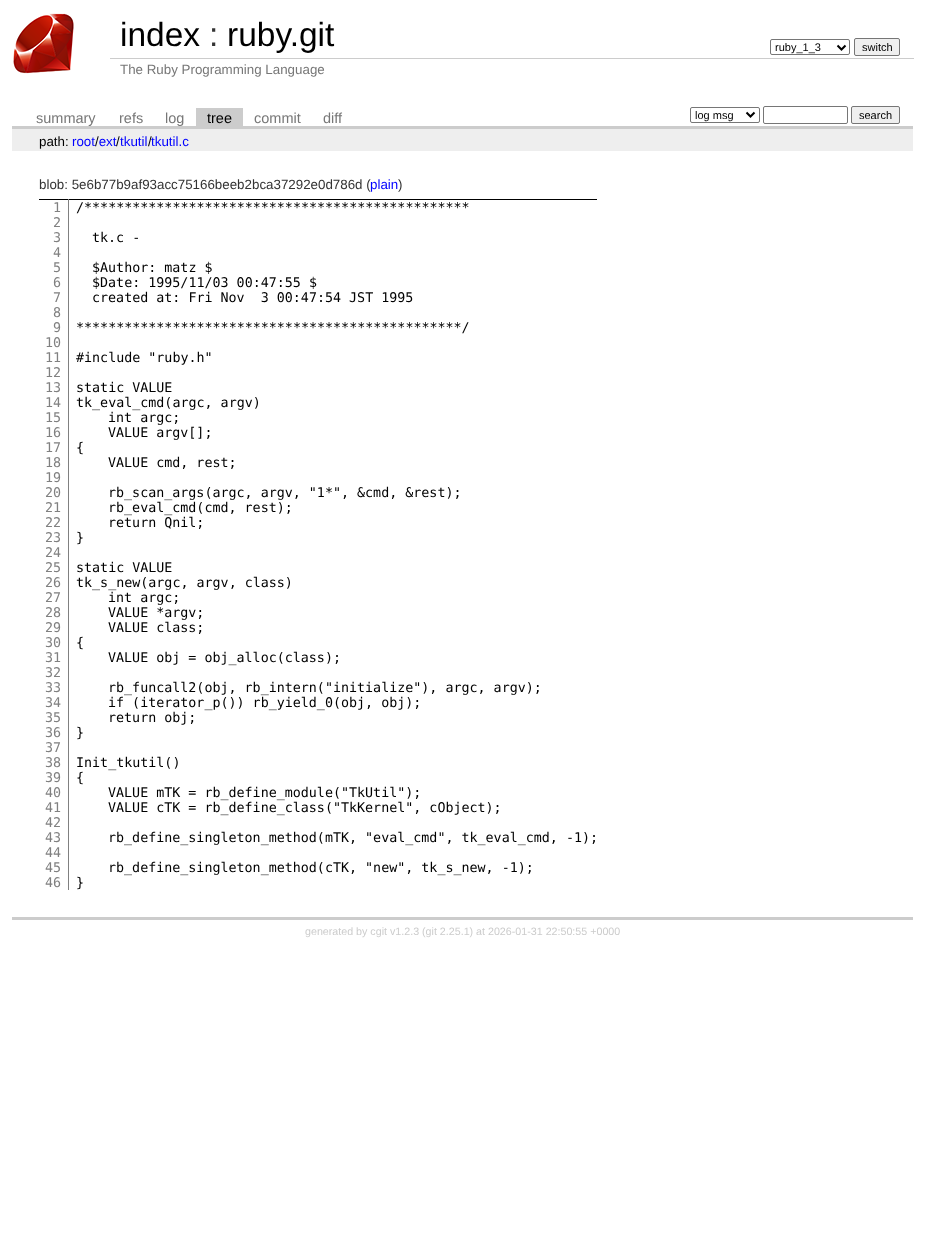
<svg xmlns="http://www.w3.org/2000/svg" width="925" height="1242">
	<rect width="100%" height="100%" fill="#FFFFFF" />
	<image x="13" y="13" width="61" height="61" href="assets/img1.png" />
	<text x="120" y="46" font-family="Liberation Sans" font-size="33.5" fill="#000000">index</text>
	<text x="209" y="46" font-family="Liberation Sans" font-size="33.5" fill="#333333">:</text>
	<text x="227" y="46" font-family="Liberation Sans" font-size="33.5" fill="#000000">ruby.git</text>
	<rect x="770.5" y="39.5" width="79" height="15" rx="1.5" fill="none" stroke="#767676" />
	<path d="M837.5 45.5L841.5 49.5L845.5 45.5" fill="none" stroke="#000000" stroke-width="2" />
	<text x="775" y="51" font-family="Liberation Sans" font-size="11" fill="#000000">ruby_1_3</text>
	<rect x="854.5" y="38.5" width="45" height="17" rx="1.5" fill="#EFEFEF" stroke="#767676" />
	<text x="862" y="51" font-family="Liberation Sans" font-size="11" fill="#000000">switch</text>
	<rect x="110" y="58" width="804" height="1" fill="#CCCCCC" />
	<text x="120" y="74" font-family="Liberation Sans" font-size="13.35" fill="#777777">The Ruby Programming Language</text>
	<rect x="12" y="126" width="901" height="3" fill="#CCCCCC" />
	<g font-family="Liberation Sans" font-size="14.5" fill="#777777">
		<text x="36" y="123">summary</text>
		<text x="119" y="123">refs</text>
		<text x="165" y="123">log</text>
	</g>
	<rect x="196" y="108" width="47" height="18" fill="#CCCCCC" />
	<text x="207" y="123" font-family="Liberation Sans" font-size="14.5" fill="#000000">tree</text>
	<g font-family="Liberation Sans" font-size="14.5" fill="#777777">
		<text x="254" y="123">commit</text>
		<text x="323" y="123">diff</text>
	</g>
	<rect x="690.5" y="107.5" width="69" height="15" rx="1.5" fill="none" stroke="#767676" />
	<path d="M746.5 112.5L750.5 116.5L754.5 112.5" fill="none" stroke="#000000" stroke-width="2" />
	<text x="695" y="119" font-family="Liberation Sans" font-size="11" fill="#000000">log msg</text>
	<rect x="763.5" y="106.5" width="84" height="17" rx="1.5" fill="none" stroke="#767676" />
	<rect x="851.5" y="106.5" width="48" height="17" rx="1.5" fill="#EFEFEF" stroke="#767676" />
	<text x="859" y="119" font-family="Liberation Sans" font-size="11" fill="#000000">search</text>
	<rect x="12" y="129" width="901" height="22" fill="#EEEEEE" />
	<text x="39" y="146" font-family="Liberation Sans" font-size="13.35" fill="#000000">path:</text>
	<text x="72" y="146" font-family="Liberation Sans" font-size="13.35" fill="#0000FF">root ext</text>
	<g font-family="Liberation Sans" font-size="13.35" fill="#000000">
		<text x="95" y="146">/</text>
		<text x="116" y="146">/</text>
	</g>
	<text x="120" y="146" font-family="Liberation Sans" font-size="13.35" fill="#0000FF">tkutil</text>
	<text x="148" y="146" font-family="Liberation Sans" font-size="13.35" fill="#000000">/</text>
	<text x="151" y="146" font-family="Liberation Sans" font-size="13.35" fill="#0000FF">tkutil.c</text>
	<rect x="12" y="917" width="901" height="3" fill="#CCCCCC" />
	<text x="39" y="189" font-family="Liberation Sans" font-size="13.35" fill="#333333">blob: 5e6b77b9af93acc75166beeb2bca37292e0d786d (</text>
	<text x="370" y="189" font-family="Liberation Sans" font-size="13.35" fill="#0000FF">plain</text>
	<text x="398" y="189" font-family="Liberation Sans" font-size="13.35" fill="#333333">)</text>
	<rect x="39" y="199" width="558" height="1" fill="#000000" />
	<rect x="68" y="199" width="1" height="691" fill="#808080" />
	<g font-family="DejaVu Sans Mono" font-size="13.35" fill="#808080">
		<text x="53" y="212">1</text>
		<text x="53" y="227">2</text>
		<text x="53" y="242">3</text>
		<text x="53" y="257">4</text>
		<text x="53" y="272">5</text>
		<text x="53" y="287">6</text>
		<text x="53" y="302">7</text>
		<text x="53" y="317">8</text>
		<text x="53" y="332">9</text>
		<text x="45" y="347">10</text>
		<text x="45" y="362">11</text>
		<text x="45" y="377">12</text>
		<text x="45" y="392">13</text>
		<text x="45" y="407">14</text>
		<text x="45" y="422">15</text>
		<text x="45" y="437">16</text>
		<text x="45" y="452">17</text>
		<text x="45" y="467">18</text>
		<text x="45" y="482">19</text>
		<text x="45" y="497">20</text>
		<text x="45" y="512">21</text>
		<text x="45" y="527">22</text>
		<text x="45" y="542">23</text>
		<text x="45" y="557">24</text>
		<text x="45" y="572">25</text>
		<text x="45" y="587">26</text>
		<text x="45" y="602">27</text>
		<text x="45" y="617">28</text>
		<text x="45" y="632">29</text>
		<text x="45" y="647">30</text>
		<text x="45" y="662">31</text>
		<text x="45" y="677">32</text>
		<text x="45" y="692">33</text>
		<text x="45" y="707">34</text>
		<text x="45" y="722">35</text>
		<text x="45" y="737">36</text>
		<text x="45" y="752">37</text>
		<text x="45" y="767">38</text>
		<text x="45" y="782">39</text>
		<text x="45" y="797">40</text>
		<text x="45" y="812">41</text>
		<text x="45" y="827">42</text>
		<text x="45" y="842">43</text>
		<text x="45" y="857">44</text>
		<text x="45" y="872">45</text>
		<text x="45" y="887">46</text>
	</g>
	<g font-family="DejaVu Sans Mono" font-size="13.35" fill="#000000">
		<text x="76" y="212">/************************************************</text>
		<text x="92" y="242">tk.c -</text>
		<text x="92" y="272">$Author: matz $</text>
		<text x="92" y="287">$Date: 1995/11/03 00:47:55 $</text>
		<text x="92" y="302" xml:space="preserve">created at: Fri Nov  3 00:47:54 JST 1995</text>
		<text x="76" y="332">************************************************/</text>
		<text x="76" y="362">#include "ruby.h"</text>
		<text x="76" y="392">static VALUE</text>
		<text x="76" y="407">tk_eval_cmd(argc, argv)</text>
		<text x="108" y="422">int argc;</text>
		<text x="108" y="437">VALUE argv[];</text>
		<text x="76" y="452">{</text>
		<text x="108" y="467">VALUE cmd, rest;</text>
		<text x="108" y="497">rb_scan_args(argc, argv, "1*", &amp;cmd, &amp;rest);</text>
		<text x="108" y="512">rb_eval_cmd(cmd, rest);</text>
		<text x="108" y="527">return Qnil;</text>
		<text x="76" y="542">}</text>
		<text x="76" y="572">static VALUE</text>
		<text x="76" y="587">tk_s_new(argc, argv, class)</text>
		<text x="108" y="602">int argc;</text>
		<text x="108" y="617">VALUE *argv;</text>
		<text x="108" y="632">VALUE class;</text>
		<text x="76" y="647">{</text>
		<text x="108" y="662">VALUE obj = obj_alloc(class);</text>
		<text x="108" y="692">rb_funcall2(obj, rb_intern("initialize"), argc, argv);</text>
		<text x="108" y="707">if (iterator_p()) rb_yield_0(obj, obj);</text>
		<text x="108" y="722">return obj;</text>
		<text x="76" y="737">}</text>
		<text x="76" y="767">Init_tkutil()</text>
		<text x="76" y="782">{</text>
		<text x="108" y="797">VALUE mTK = rb_define_module("TkUtil");</text>
		<text x="108" y="812">VALUE cTK = rb_define_class("TkKernel", cObject);</text>
		<text x="108" y="842">rb_define_singleton_method(mTK, "eval_cmd", tk_eval_cmd, -1);</text>
		<text x="108" y="872">rb_define_singleton_method(cTK, "new", tk_s_new, -1);</text>
		<text x="76" y="887">}</text>
	</g>
	<text x="305" y="935" font-family="Liberation Sans" font-size="10.7" fill="#CCCCCC">generated by cgit v1.2.3 (git 2.25.1) at 2026-01-31 22:50:55 +0000</text>
</svg>
